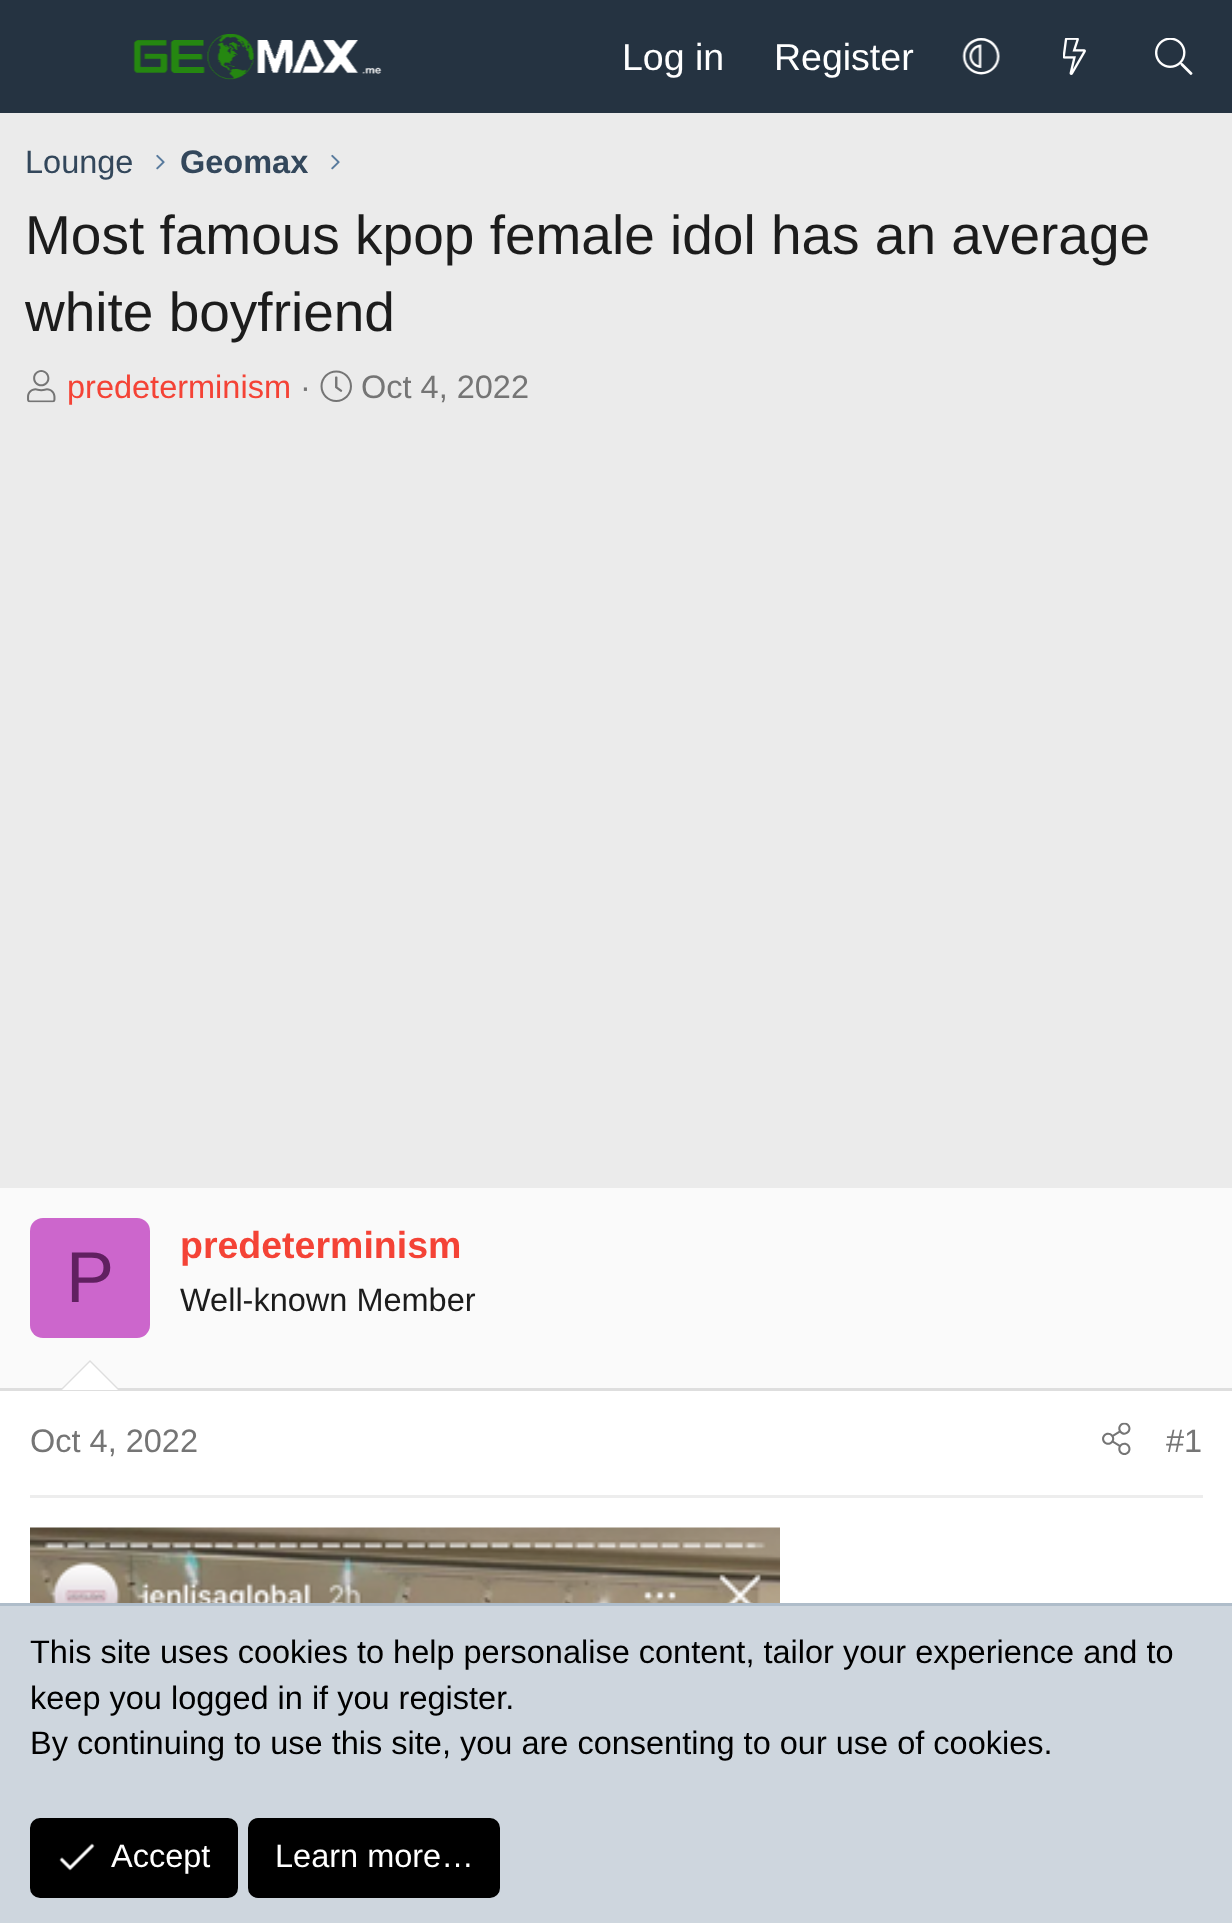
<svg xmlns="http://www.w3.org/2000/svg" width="1232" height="1923">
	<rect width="100%" height="100%" fill="#EBEBEB" />
	<rect x="0" y="0" width="1232" height="113" fill="#253341" />
	<image x="133" y="34" width="249" height="46" href="assets/img1.png" />
	<g font-family="Liberation Sans" font-size="37.5" fill="#FFFFFF">
		<text x="622" y="70">Log in</text>
		<text x="774" y="70">Register</text>
	</g>
	<image x="962" y="38" width="38" height="37" href="assets/img2.png" />
	<image x="1063" y="38" width="23" height="37" href="assets/img3.png" />
	<image x="1155" y="38" width="38" height="37" href="assets/img4.png" />
	<text x="25" y="173" font-family="Liberation Sans" font-size="32.5" fill="#33475B">Lounge</text>
	<image x="156" y="154" width="9" height="16" href="assets/img5.png" />
	<text x="180" y="173" font-family="Liberation Sans" font-size="32.5" font-weight="700" fill="#33475B">Geomax</text>
	<image x="331" y="154" width="9" height="16" href="assets/img5.png" />
	<g font-family="Liberation Sans" font-size="55" fill="#1C1C1C">
		<text x="25" y="254">Most famous kpop female idol has an average</text>
		<text x="25" y="331">white boyfriend</text>
	</g>
	<image x="27" y="370" width="29" height="33" href="assets/img6.png" />
	<text x="67" y="398" font-family="Liberation Sans" font-size="32.5" fill="#F44336">predeterminism</text>
	<text x="300" y="398" font-family="Liberation Sans" font-size="32.5" fill="#757575">·</text>
	<image x="320" y="370" width="32" height="32" href="assets/img7.png" />
	<text x="361" y="398" font-family="Liberation Sans" font-size="32.5" fill="#757575">Oct 4, 2022</text>
	<rect x="0" y="1391" width="1232" height="212" fill="#FFFFFF" />
	<rect x="0" y="1188" width="1232" height="200" fill="#FAFAFA" />
	<rect x="0" y="1388" width="1232" height="3" fill="#DEDEDE" />
	<rect x="30" y="1218" width="120" height="120" rx="13" fill="#CC66CC" />
	<text x="66" y="1302" font-family="Liberation Sans" font-size="72" fill="#602060">P</text>
	<text x="180" y="1258" font-family="Liberation Sans" font-size="37.5" font-weight="700" fill="#F44336">predeterminism</text>
	<text x="180" y="1311" font-family="Liberation Sans" font-size="32.5" fill="#1C1C1C">Well-known Member</text>
	<path d="M120 1390H60L90 1360Z" fill="#DEDEDE" />
	<path d="M118 1390H62L90 1362Z" fill="#FFFFFF" />
	<rect x="30" y="1495" width="1173" height="3" fill="#EDEDED" />
	<text x="30" y="1452" font-family="Liberation Sans" font-size="32.5" fill="#757575">Oct 4, 2022</text>
	<image x="1102" y="1422" width="29" height="33" href="assets/img8.png" />
	<text x="1166" y="1452" font-family="Liberation Sans" font-size="32.5" fill="#757575">#1</text>
	<image x="30" y="1527" width="750" height="76" href="assets/img9.png" />
	<rect x="0" y="1606" width="1232" height="317" fill="#CED6DE" />
	<rect x="0" y="1603" width="1232" height="3" fill="#AFBDCA" />
	<g font-family="Liberation Sans" font-size="32.5" fill="#000000">
		<text x="30" y="1663">This site uses cookies to help personalise content, tailor your experience and to</text>
		<text x="30" y="1709">keep you logged in if you register.</text>
		<text x="30" y="1754">By continuing to use this site, you are consenting to our use of cookies.</text>
	</g>
	<rect x="31.5" y="1819.5" width="205" height="77" rx="8.5" fill="#000000" stroke="#000000" stroke-width="3" />
	<image x="59" y="1843" width="36" height="28" href="assets/img10.png" />
	<text x="111" y="1867" font-family="Liberation Sans" font-size="32.5" fill="#FFFFFF">Accept</text>
	<rect x="249.5" y="1819.5" width="249" height="77" rx="8.5" fill="#000000" stroke="#000000" stroke-width="3" />
	<text x="275" y="1867" font-family="Liberation Sans" font-size="32.5" fill="#FFFFFF">Learn more…</text>
</svg>
